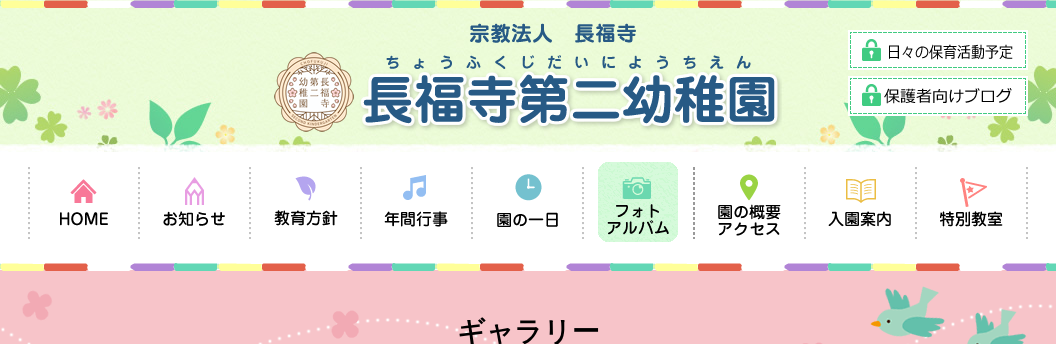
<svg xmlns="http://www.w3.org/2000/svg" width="1056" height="344">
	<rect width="100%" height="100%" fill="#FFFFFF" />
	<image x="0" y="0" width="1056" height="152" href="assets/img1.png" />
	<image x="0" y="0" width="1056" height="8" href="assets/img2.png" />
	<image x="274" y="23" width="508" height="109" href="assets/img3.png" />
	<image x="848" y="30" width="180" height="40" href="assets/img4.png" />
	<image x="848" y="76" width="180" height="40" href="assets/img5.png" />
	<image x="140" y="162" width="792" height="80" href="assets/img6.png" />
	<image x="28" y="162" width="112" height="80" href="assets/img7.png" />
	<image x="154" y="162" width="97" height="80" href="assets/img8.png" />
	<image x="265" y="162" width="97" height="80" href="assets/img9.png" />
	<image x="376" y="162" width="97" height="80" href="assets/img10.png" />
	<image x="487" y="162" width="97" height="80" href="assets/img11.png" />
	<image x="709" y="162" width="97" height="80" href="assets/img12.png" />
	<image x="820" y="162" width="97" height="80" href="assets/img13.png" />
	<image x="932" y="162" width="96" height="80" href="assets/img14.png" />
	<rect x="0" y="270" width="1056" height="74" fill="#F7C4C9" />
	<image x="0" y="263" width="1056" height="8" href="assets/img15.png" />
	<image x="1" y="286" width="1052" height="58" href="assets/img16.png" />
	<text x="457" y="341" font-family="WenQuanYi Zen Hei" font-size="28" font-weight="700" fill="#000000">ギャラリー</text>
</svg>
